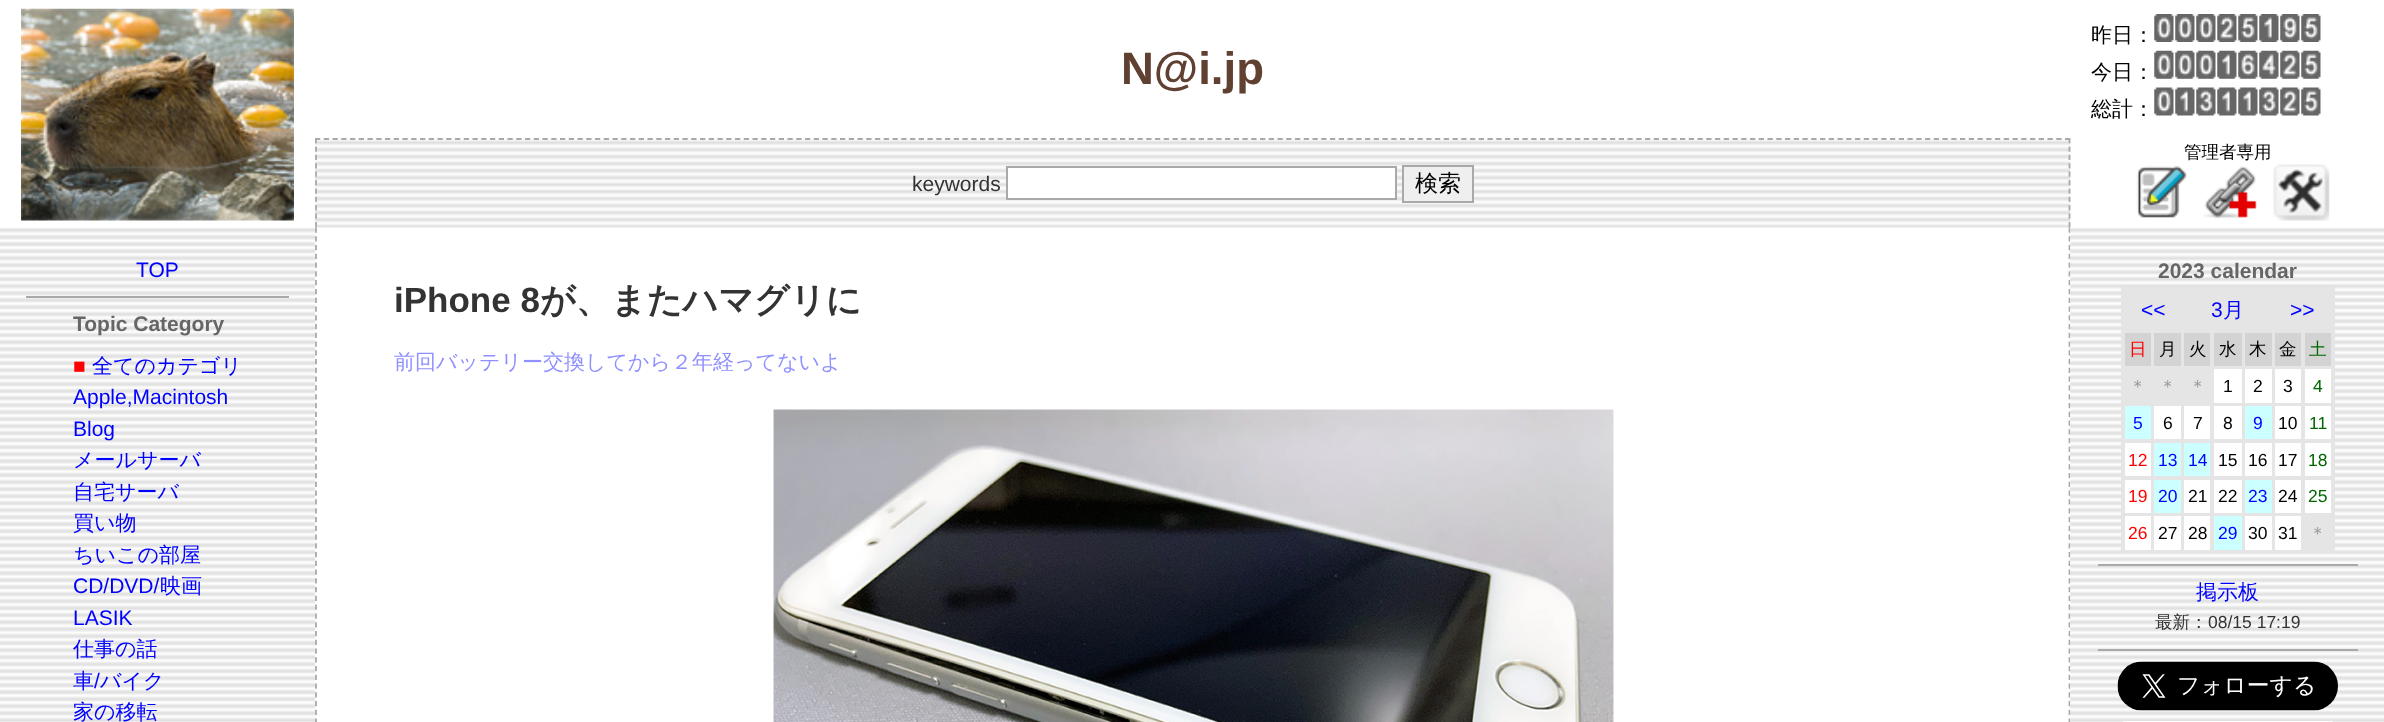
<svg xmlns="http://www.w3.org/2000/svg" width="2384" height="722">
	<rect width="100%" height="100%" fill="#FFFFFF" />
	<image x="21" y="8" width="273" height="213" href="assets/img1.png" />
	<text x="1121" y="84" font-family="Liberation Sans" font-size="45.5" font-weight="700" fill="#604030">N@i.jp</text>
	<text x="2091" y="42" font-family="WenQuanYi Zen Hei" font-size="21" font-weight="500" fill="#000000">昨日：</text>
	<image x="2154" y="14" width="20" height="28" href="assets/img2.png" />
	<image x="2175" y="14" width="20" height="28" href="assets/img2.png" />
	<image x="2196" y="14" width="20" height="28" href="assets/img2.png" />
	<image x="2217" y="14" width="20" height="28" href="assets/img3.png" />
	<image x="2238" y="14" width="20" height="28" href="assets/img4.png" />
	<image x="2259" y="14" width="20" height="28" href="assets/img5.png" />
	<image x="2280" y="14" width="20" height="28" href="assets/img6.png" />
	<image x="2301" y="14" width="20" height="28" href="assets/img4.png" />
	<text x="2091" y="79" font-family="WenQuanYi Zen Hei" font-size="21" font-weight="500" fill="#000000">今日：</text>
	<image x="2154" y="50" width="20" height="29" href="assets/img7.png" />
	<image x="2175" y="50" width="20" height="29" href="assets/img7.png" />
	<image x="2196" y="50" width="20" height="29" href="assets/img7.png" />
	<image x="2217" y="50" width="20" height="29" href="assets/img8.png" />
	<image x="2238" y="50" width="20" height="29" href="assets/img9.png" />
	<image x="2259" y="50" width="20" height="29" href="assets/img10.png" />
	<image x="2280" y="50" width="20" height="29" href="assets/img11.png" />
	<image x="2301" y="50" width="20" height="29" href="assets/img12.png" />
	<text x="2091" y="116" font-family="WenQuanYi Zen Hei" font-size="21" font-weight="500" fill="#000000">総計：</text>
	<image x="2154" y="87" width="20" height="29" href="assets/img13.png" />
	<image x="2175" y="87" width="20" height="29" href="assets/img14.png" />
	<image x="2196" y="87" width="20" height="29" href="assets/img15.png" />
	<image x="2217" y="87" width="20" height="29" href="assets/img14.png" />
	<image x="2238" y="87" width="20" height="29" href="assets/img14.png" />
	<image x="2259" y="87" width="20" height="29" href="assets/img15.png" />
	<image x="2280" y="87" width="20" height="29" href="assets/img16.png" />
	<image x="2301" y="87" width="20" height="29" href="assets/img17.png" />
	<text x="2184" y="158" font-family="WenQuanYi Zen Hei" font-size="17.5" font-weight="500" fill="#000000">管理者専用</text>
	<image x="2136" y="165" width="51" height="53" href="assets/img18.png" />
	<image x="2203" y="166" width="54" height="53" href="assets/img19.png" />
	<image x="2273" y="164" width="57" height="57" href="assets/img20.png" />
	<image x="315" y="138" width="1756" height="90" href="assets/img21.png" />
	<path d="M315 139H2070" fill="none" stroke="#A9A9A9" stroke-width="1.8" stroke-dasharray="5.25 3.5" />
	<path d="M2069.5 138V227.5" fill="none" stroke="#A9A9A9" stroke-width="1.8" stroke-dasharray="5.25 3.15" />
	<path d="M316 138V227.5" fill="none" stroke="#A9A9A9" stroke-width="1.8" stroke-dasharray="5.25 3.15" />
	<text x="912" y="191" font-family="Liberation Sans" font-size="21" fill="#333333">keywords</text>
	<rect x="1007" y="167" width="389" height="32" fill="#FFFFFF" stroke="#A9A9A9" stroke-width="2" />
	<rect x="1404" y="167" width="68" height="33" fill="#EFEFEF" />
	<rect x="1403" y="166" width="70" height="36" fill="none" stroke="#A9A9A9" stroke-width="2" />
	<text x="1415" y="191" font-family="WenQuanYi Zen Hei" font-size="23" font-weight="500" fill="#000000">検索</text>
	<image x="0" y="227" width="315" height="495" href="assets/img22.png" />
	<text x="136" y="277" font-family="Liberation Sans" font-size="21" fill="#0000FF">TOP</text>
	<rect x="26" y="296" width="263" height="2" fill="#A9A9A9" />
	<text x="73" y="331" font-family="Liberation Sans" font-size="21" font-weight="700" fill="#666666">Topic Category</text>
	<text x="73" y="373" font-family="Liberation Sans" font-size="21" fill="#FF0000">■</text>
	<text x="92" y="373" font-family="WenQuanYi Zen Hei" font-size="21" font-weight="500" fill="#0000FF">全てのカテゴリ</text>
	<g font-family="Liberation Sans" font-size="21" fill="#0000FF">
		<text x="73" y="404">Apple,Macintosh</text>
		<text x="73" y="436">Blog</text>
	</g>
	<g font-family="WenQuanYi Zen Hei" font-size="21" font-weight="500" fill="#0000FF">
		<text x="73" y="467">メールサーバ</text>
		<text x="73" y="499">自宅サーバ</text>
		<text x="73" y="530">買い物</text>
		<text x="73" y="562">ちいこの部屋</text>
	</g>
	<text x="73" y="593" font-family="Liberation Sans" font-size="21" fill="#0000FF">CD/DVD/</text>
	<text x="160" y="593" font-family="WenQuanYi Zen Hei" font-size="21" font-weight="500" fill="#0000FF">映画</text>
	<text x="73" y="625" font-family="Liberation Sans" font-size="21" fill="#0000FF">LASIK</text>
	<g font-family="WenQuanYi Zen Hei" font-size="21" font-weight="500" fill="#0000FF">
		<text x="73" y="656">仕事の話</text>
		<text x="73" y="688">車</text>
	</g>
	<text x="94" y="688" font-family="Liberation Sans" font-size="21" fill="#0000FF">/</text>
	<g font-family="WenQuanYi Zen Hei" font-size="21" font-weight="500" fill="#0000FF">
		<text x="100" y="688">バイク</text>
		<text x="73" y="719">家の移転</text>
	</g>
	<path d="M2069.5 227.5V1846" fill="none" stroke="#A9A9A9" stroke-width="1.8" stroke-dasharray="5.25 3.52" />
	<path d="M316 227.5V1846" fill="none" stroke="#A9A9A9" stroke-width="1.8" stroke-dasharray="5.25 3.52" />
	<text x="394" y="312" font-family="Liberation Sans" font-size="35" font-weight="700" fill="#333333">iPhone 8</text>
	<text x="540" y="312" font-family="WenQuanYi Zen Hei" font-size="35" font-weight="700" fill="#333333">が、またハマグリに</text>
	<text x="394" y="369" font-family="WenQuanYi Zen Hei" font-size="21" font-weight="500" fill="#9090FF">前回バッテリー交換してから２年経ってないよ</text>
	<image x="773" y="409" width="841" height="313" href="assets/img23.png" />
	<image x="2070" y="227" width="314" height="495" href="assets/img24.png" />
	<text x="2158" y="278" font-family="Liberation Sans" font-size="21" font-weight="700" fill="#666666">2023 calendar</text>
	<rect x="2121" y="287" width="214" height="266" fill="#E5E5E5" />
	<g font-family="Liberation Sans" font-size="21" fill="#0000FF">
		<text x="2141" y="317">&lt;&lt;</text>
		<text x="2211" y="317">3</text>
	</g>
	<text x="2223" y="317" font-family="WenQuanYi Zen Hei" font-size="21" font-weight="500" fill="#0000FF">月</text>
	<text x="2290" y="317" font-family="Liberation Sans" font-size="21" fill="#0000FF">&gt;&gt;</text>
	<rect x="2125" y="333" width="26" height="33" fill="#D3D3D3" />
	<text x="2129" y="355" font-family="WenQuanYi Zen Hei" font-size="17.5" font-weight="500" fill="#FF0000">日</text>
	<rect x="2154" y="333" width="27" height="33" fill="#D3D3D3" />
	<text x="2159" y="355" font-family="WenQuanYi Zen Hei" font-size="17.5" font-weight="500" fill="#000000">月</text>
	<rect x="2184" y="333" width="26" height="33" fill="#D3D3D3" />
	<text x="2189" y="355" font-family="WenQuanYi Zen Hei" font-size="17.5" font-weight="500" fill="#000000">火</text>
	<rect x="2214" y="333" width="28" height="33" fill="#D3D3D3" />
	<text x="2219" y="355" font-family="WenQuanYi Zen Hei" font-size="17.5" font-weight="500" fill="#000000">水</text>
	<rect x="2245" y="333" width="27" height="33" fill="#D3D3D3" />
	<text x="2249" y="355" font-family="WenQuanYi Zen Hei" font-size="17.5" font-weight="500" fill="#000000">木</text>
	<rect x="2275" y="333" width="26" height="33" fill="#D3D3D3" />
	<text x="2279" y="355" font-family="WenQuanYi Zen Hei" font-size="17.5" font-weight="500" fill="#000000">金</text>
	<rect x="2305" y="333" width="26" height="33" fill="#D3D3D3" />
	<text x="2309" y="355" font-family="WenQuanYi Zen Hei" font-size="17.5" font-weight="500" fill="#006600">土</text>
	<g font-family="WenQuanYi Zen Hei" font-size="17.5" font-weight="500" fill="#999999">
		<text x="2129" y="392">＊</text>
		<text x="2159" y="392">＊</text>
		<text x="2189" y="392">＊</text>
	</g>
	<rect x="2214" y="369" width="28" height="34" fill="#FFFFFF" />
	<text x="2223" y="392" font-family="Liberation Sans" font-size="17.5" fill="#000000">1</text>
	<rect x="2245" y="369" width="27" height="34" fill="#FFFFFF" />
	<text x="2253" y="392" font-family="Liberation Sans" font-size="17.5" fill="#000000">2</text>
	<rect x="2275" y="369" width="26" height="34" fill="#FFFFFF" />
	<text x="2283" y="392" font-family="Liberation Sans" font-size="17.5" fill="#000000">3</text>
	<rect x="2305" y="369" width="26" height="34" fill="#FFFFFF" />
	<text x="2313" y="392" font-family="Liberation Sans" font-size="17.5" fill="#006600">4</text>
	<rect x="2125" y="406" width="26" height="33" fill="#CCFFFF" />
	<text x="2133" y="429" font-family="Liberation Sans" font-size="17.5" fill="#0000FF">5</text>
	<rect x="2154" y="406" width="27" height="33" fill="#FFFFFF" />
	<text x="2163" y="429" font-family="Liberation Sans" font-size="17.5" fill="#000000">6</text>
	<rect x="2184" y="406" width="26" height="33" fill="#FFFFFF" />
	<text x="2193" y="429" font-family="Liberation Sans" font-size="17.5" fill="#000000">7</text>
	<rect x="2214" y="406" width="28" height="33" fill="#FFFFFF" />
	<text x="2223" y="429" font-family="Liberation Sans" font-size="17.5" fill="#000000">8</text>
	<rect x="2245" y="406" width="27" height="33" fill="#CCFFFF" />
	<text x="2253" y="429" font-family="Liberation Sans" font-size="17.5" fill="#0000FF">9</text>
	<rect x="2275" y="406" width="26" height="33" fill="#FFFFFF" />
	<text x="2278" y="429" font-family="Liberation Sans" font-size="17.5" fill="#000000">10</text>
	<rect x="2305" y="406" width="26" height="33" fill="#FFFFFF" />
	<text x="2309" y="429" font-family="Liberation Sans" font-size="17.5" fill="#006600">11</text>
	<rect x="2125" y="443" width="26" height="33" fill="#FFFFFF" />
	<text x="2128" y="466" font-family="Liberation Sans" font-size="17.5" fill="#FF0000">12</text>
	<rect x="2154" y="443" width="27" height="33" fill="#CCFFFF" />
	<text x="2158" y="466" font-family="Liberation Sans" font-size="17.5" fill="#0000FF">13</text>
	<rect x="2184" y="443" width="26" height="33" fill="#CCFFFF" />
	<text x="2188" y="466" font-family="Liberation Sans" font-size="17.5" fill="#0000FF">14</text>
	<rect x="2214" y="443" width="28" height="33" fill="#FFFFFF" />
	<text x="2218" y="466" font-family="Liberation Sans" font-size="17.5" fill="#000000">15</text>
	<rect x="2245" y="443" width="27" height="33" fill="#FFFFFF" />
	<text x="2248" y="466" font-family="Liberation Sans" font-size="17.5" fill="#000000">16</text>
	<rect x="2275" y="443" width="26" height="33" fill="#FFFFFF" />
	<text x="2278" y="466" font-family="Liberation Sans" font-size="17.5" fill="#000000">17</text>
	<rect x="2305" y="443" width="26" height="33" fill="#FFFFFF" />
	<text x="2308" y="466" font-family="Liberation Sans" font-size="17.5" fill="#006600">18</text>
	<rect x="2125" y="480" width="26" height="33" fill="#FFFFFF" />
	<text x="2128" y="502" font-family="Liberation Sans" font-size="17.5" fill="#FF0000">19</text>
	<rect x="2154" y="480" width="27" height="33" fill="#CCFFFF" />
	<text x="2158" y="502" font-family="Liberation Sans" font-size="17.5" fill="#0000FF">20</text>
	<rect x="2184" y="480" width="26" height="33" fill="#FFFFFF" />
	<text x="2188" y="502" font-family="Liberation Sans" font-size="17.5" fill="#000000">21</text>
	<rect x="2214" y="480" width="28" height="33" fill="#FFFFFF" />
	<text x="2218" y="502" font-family="Liberation Sans" font-size="17.5" fill="#000000">22</text>
	<rect x="2245" y="480" width="27" height="33" fill="#CCFFFF" />
	<text x="2248" y="502" font-family="Liberation Sans" font-size="17.5" fill="#0000FF">23</text>
	<rect x="2275" y="480" width="26" height="33" fill="#FFFFFF" />
	<text x="2278" y="502" font-family="Liberation Sans" font-size="17.5" fill="#000000">24</text>
	<rect x="2305" y="480" width="26" height="33" fill="#FFFFFF" />
	<text x="2308" y="502" font-family="Liberation Sans" font-size="17.5" fill="#006600">25</text>
	<rect x="2125" y="516" width="26" height="34" fill="#FFFFFF" />
	<text x="2128" y="539" font-family="Liberation Sans" font-size="17.5" fill="#FF0000">26</text>
	<rect x="2154" y="516" width="27" height="34" fill="#FFFFFF" />
	<text x="2158" y="539" font-family="Liberation Sans" font-size="17.5" fill="#000000">27</text>
	<rect x="2184" y="516" width="26" height="34" fill="#FFFFFF" />
	<text x="2188" y="539" font-family="Liberation Sans" font-size="17.5" fill="#000000">28</text>
	<rect x="2214" y="516" width="28" height="34" fill="#CCFFFF" />
	<text x="2218" y="539" font-family="Liberation Sans" font-size="17.5" fill="#0000FF">29</text>
	<rect x="2245" y="516" width="27" height="34" fill="#FFFFFF" />
	<text x="2248" y="539" font-family="Liberation Sans" font-size="17.5" fill="#000000">30</text>
	<rect x="2275" y="516" width="26" height="34" fill="#FFFFFF" />
	<text x="2278" y="539" font-family="Liberation Sans" font-size="17.5" fill="#000000">31</text>
	<text x="2309" y="539" font-family="WenQuanYi Zen Hei" font-size="17.5" font-weight="500" fill="#999999">＊</text>
	<rect x="2098" y="564" width="260" height="2" fill="#A9A9A9" />
	<text x="2196" y="599" font-family="WenQuanYi Zen Hei" font-size="21" font-weight="500" fill="#0000FF">掲示板</text>
	<text x="2155" y="628" font-family="WenQuanYi Zen Hei" font-size="17.5" font-weight="500" fill="#333333">最新：</text>
	<text x="2208" y="628" font-family="Liberation Sans" font-size="17.5" fill="#333333">08/15 17:19</text>
	<rect x="2098" y="649" width="260" height="2" fill="#A9A9A9" />
	<image x="2117" y="661" width="221" height="50" href="assets/img25.png" />
	<image x="2122" y="721" width="211" height="1" href="assets/img26.png" />
</svg>
